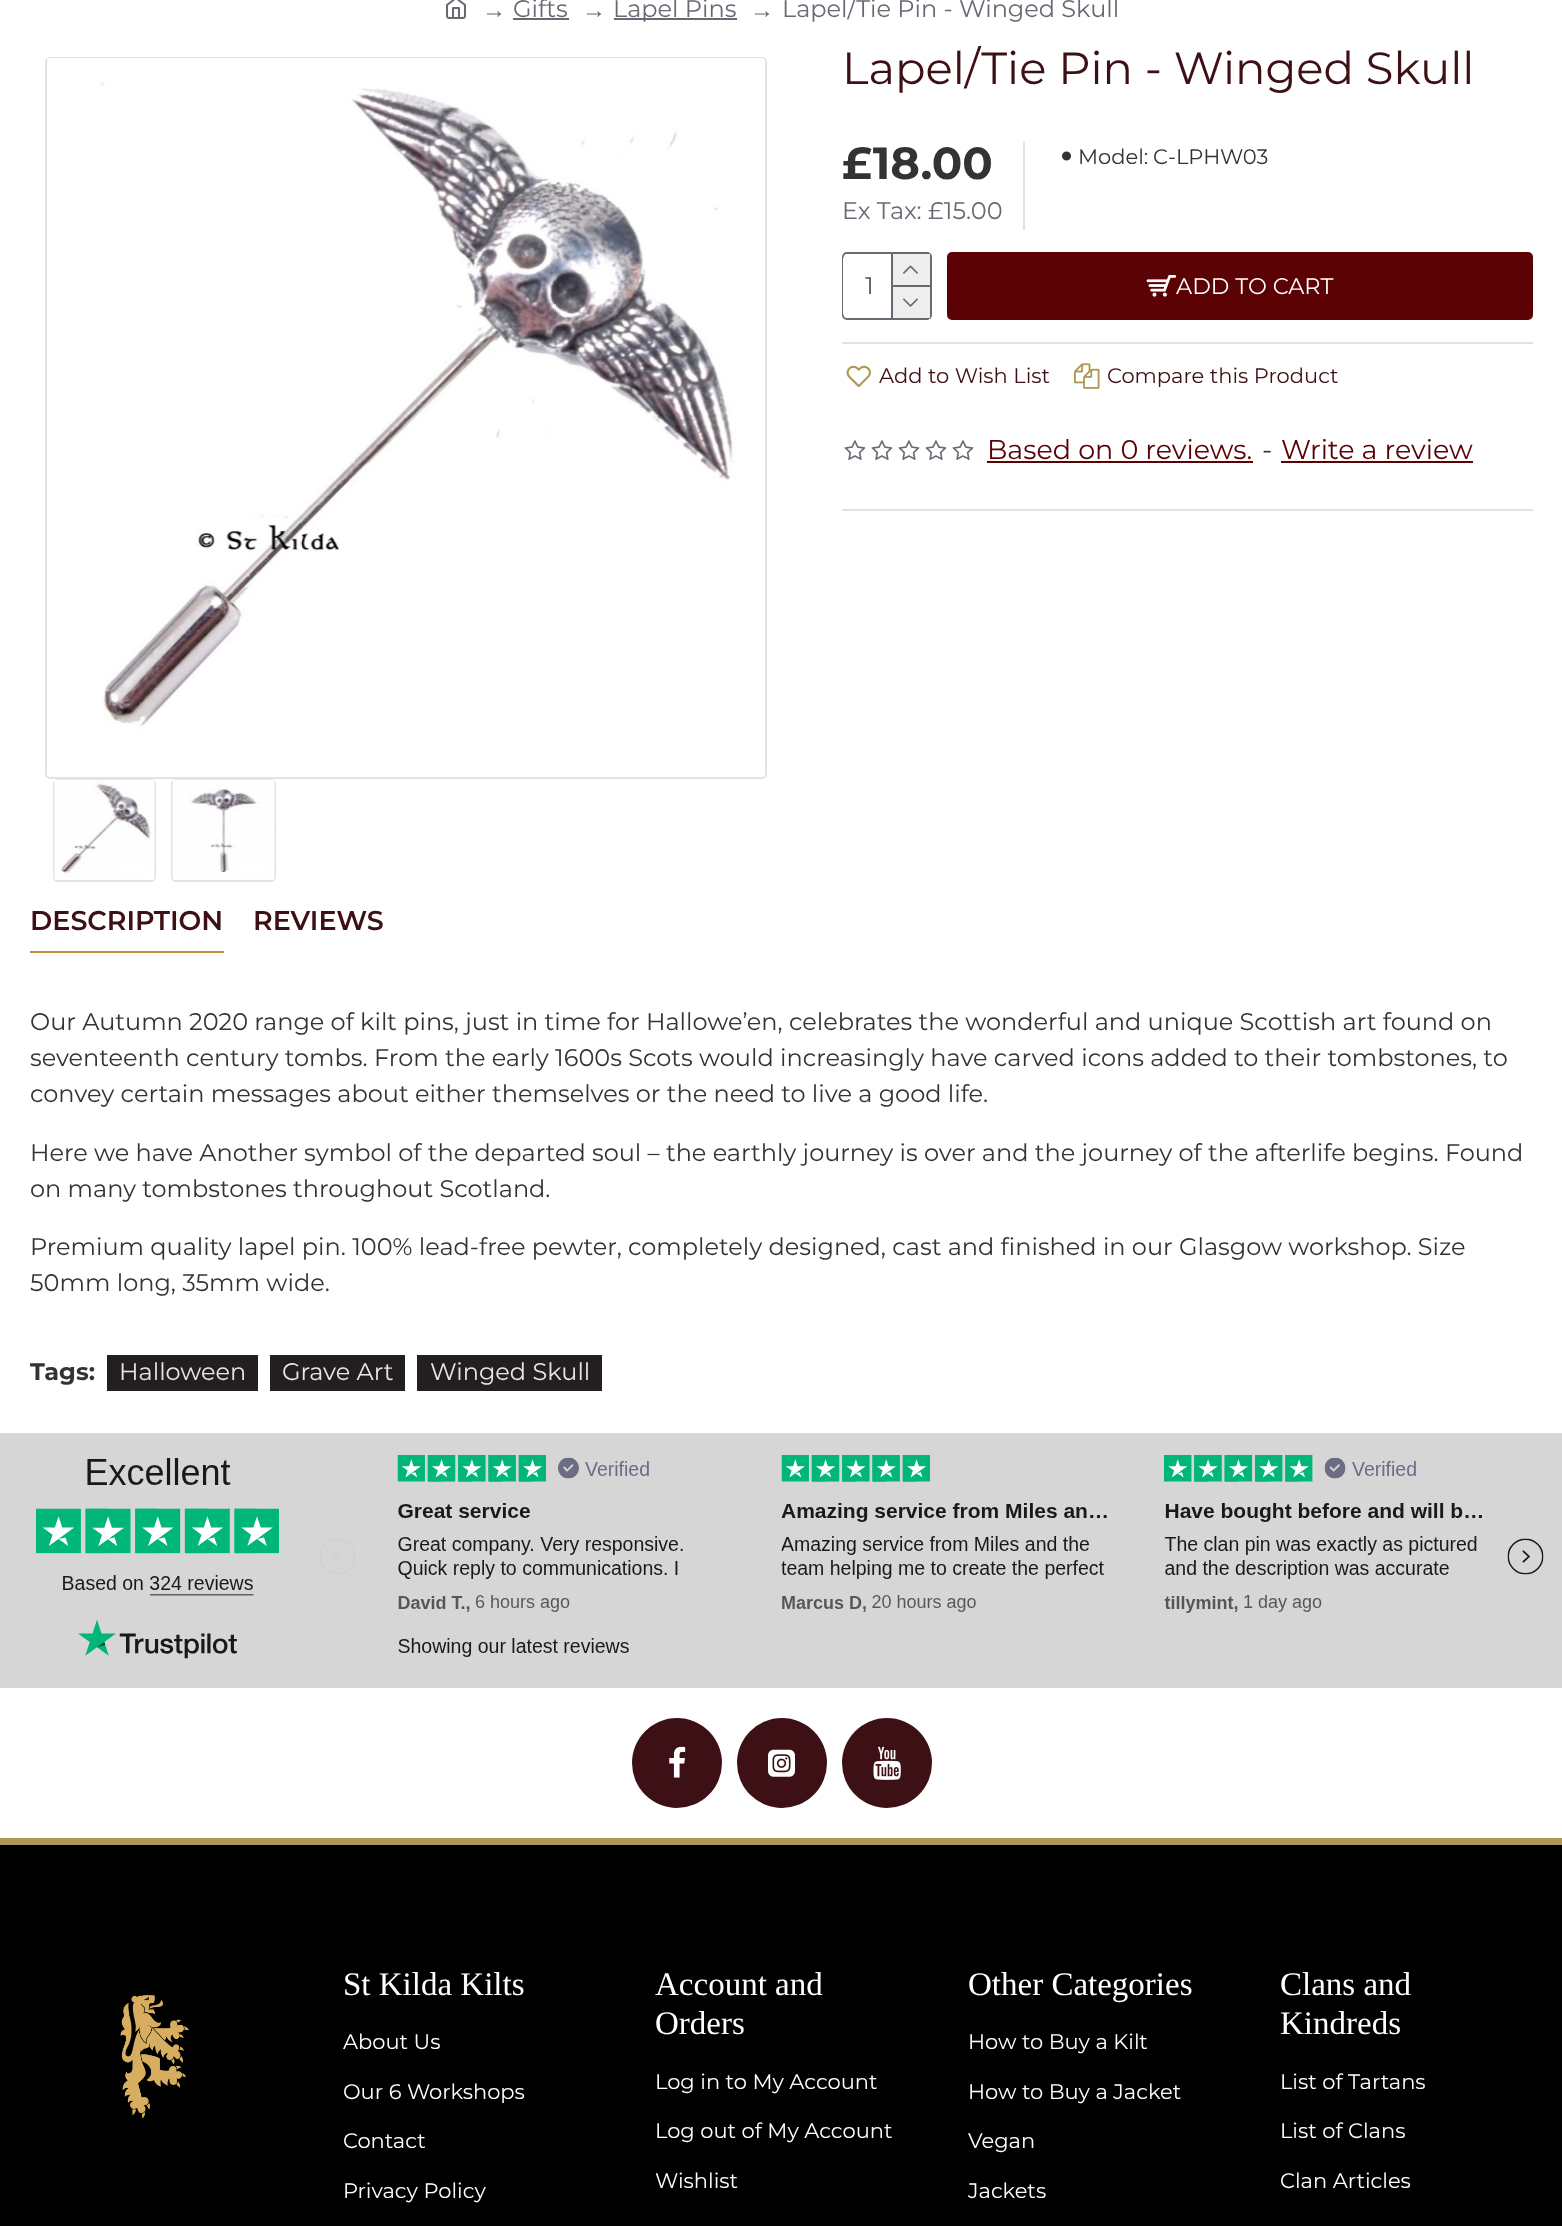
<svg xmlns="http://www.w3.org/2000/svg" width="1562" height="2226">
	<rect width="100%" height="100%" fill="#FFFFFF" />
	<image x="446" y="0" width="20" height="19" href="assets/img1.png" />
	<text x="482" y="18" font-family="Liberation Serif" font-size="24" fill="#696973">→</text>
	<text x="513" y="17" font-family="Montserrat" font-size="24" fill="#696973">Gifts</text>
	<rect x="513" y="18" width="56" height="2" fill="#696973" />
	<text x="582" y="18" font-family="Liberation Serif" font-size="24" fill="#696973">→</text>
	<rect x="614" y="18" width="123" height="2" fill="#696973" />
	<text x="613" y="17" font-family="Montserrat" font-size="24" fill="#696973">Lapel Pins</text>
	<text x="750" y="18" font-family="Liberation Serif" font-size="24" fill="#696973">→</text>
	<text x="782" y="17" font-family="Montserrat" font-size="24" fill="#696973">Lapel/Tie Pin - Winged Skull</text>
	<rect x="46" y="58" width="720" height="720" rx="4" fill="none" stroke="#E2E2E2" stroke-width="2" />
	<image x="47" y="58" width="718" height="718" href="assets/img2.png" />
	<rect x="54" y="780" width="101" height="101" rx="4" fill="none" stroke="#E2E2E2" stroke-width="2" />
	<image x="54" y="779" width="101" height="101" href="assets/img3.png" />
	<rect x="172" y="780" width="103" height="101" rx="4" fill="none" stroke="#E2E2E2" stroke-width="2" />
	<image x="172" y="779" width="103" height="101" href="assets/img4.png" />
	<text x="842" y="84" font-family="Montserrat" font-size="45" fill="#3D1015">Lapel/Tie Pin - Winged Skull</text>
	<text x="842" y="179" font-family="Montserrat" font-size="45" font-weight="700" fill="#333333">£18.00</text>
	<text x="842" y="219" font-family="Montserrat" font-size="24" fill="#696973">Ex Tax: £15.00</text>
	<rect x="1023" y="141" width="2" height="89" fill="#E2E2E2" />
	<image x="1062" y="151" width="9" height="10" href="assets/img5.png" />
	<g font-family="Montserrat" font-size="21" fill="#333333">
		<text x="1078" y="164">Model:</text>
		<text x="1153" y="164">C-LPHW03</text>
	</g>
	<rect x="843" y="253" width="88" height="66" rx="4" fill="none" stroke="#696973" stroke-width="2" />
	<rect x="843" y="254" width="87" height="64" rx="5" fill="#FFFFFF" />
	<text x="865" y="294" font-family="Montserrat" font-size="24" fill="#555555">1</text>
	<rect x="891" y="254" width="2" height="64" fill="#696973" />
	<rect x="893" y="254" width="37" height="31" fill="#EEEEEE" />
	<rect x="893" y="285" width="37" height="2" fill="#696973" />
	<image x="903" y="265" width="15" height="9" href="assets/img6.png" />
	<rect x="893" y="287" width="37" height="31" fill="#EEEEEE" />
	<image x="903" y="298" width="15" height="9" href="assets/img7.png" />
	<rect x="947" y="252" width="586" height="68" rx="5" fill="#5A0204" />
	<text x="1176" y="294" font-family="Montserrat" font-size="22.5" fill="#FFFFFF">ADD TO CART</text>
	<image x="1146" y="275" width="31" height="22" href="assets/img8.png" />
	<rect x="842" y="342" width="691" height="2" fill="#E2E2E2" />
	<image x="846" y="365" width="25" height="23" href="assets/img9.png" />
	<text x="879" y="383" font-family="Montserrat" font-size="21" fill="#3D1015">Add to Wish List</text>
	<image x="1074" y="363" width="26" height="26" href="assets/img10.png" />
	<text x="1107" y="383" font-family="Montserrat" font-size="21" fill="#3D1015">Compare this Product</text>
	<rect x="842" y="509" width="691" height="2" fill="#E2E2E2" />
	<image x="844" y="440" width="22" height="20" href="assets/img11.png" />
	<image x="871" y="440" width="22" height="20" href="assets/img11.png" />
	<image x="898" y="440" width="22" height="20" href="assets/img11.png" />
	<image x="925" y="440" width="22" height="20" href="assets/img11.png" />
	<image x="952" y="440" width="22" height="20" href="assets/img11.png" />
	<text x="987" y="459" font-family="Montserrat" font-size="27" fill="#5A0204">Based on 0 reviews.</text>
	<rect x="987" y="461" width="266" height="2" fill="#5A0204" />
	<text x="1262" y="459" font-family="Montserrat" font-size="27" fill="#333333">-</text>
	<text x="1281" y="459" font-family="Montserrat" font-size="27" fill="#5A0204">Write a review</text>
	<rect x="1281" y="461" width="192" height="2" fill="#5A0204" />
	<rect x="30" y="951" width="194" height="2" fill="#C38D45" />
	<g font-family="Montserrat" font-size="27" font-weight="600" fill="#3D1015">
		<text x="30" y="930">DESCRIPTION</text>
		<text x="253" y="930">REVIEWS</text>
	</g>
	<g font-family="Montserrat" font-size="24" fill="#333333">
		<text x="30" y="1030">Our Autumn 2020 range of kilt pins, just in time for Hallowe’en, celebrates the wonderful and unique Scottish art found on</text>
		<text x="30" y="1066">seventeenth century tombs. From the early 1600s Scots would increasingly have carved icons added to their tombstones, to</text>
		<text x="30" y="1102">convey certain messages about either themselves or the need to live a good life.</text>
		<text x="30" y="1161">Here we have Another symbol of the departed soul – the earthly journey is over and the journey of the afterlife begins. Found</text>
		<text x="30" y="1197">on many tombstones throughout Scotland.</text>
		<text x="30" y="1255">Premium quality lapel pin. 100% lead-free pewter, completely designed, cast and finished in our Glasgow workshop. Size</text>
		<text x="30" y="1291">50mm long, 35mm wide.</text>
	</g>
	<text x="30" y="1380" font-family="Montserrat" font-size="24" font-weight="700" fill="#333333">Tags:</text>
	<rect x="107" y="1355" width="151" height="36" fill="#231F20" />
	<text x="119" y="1380" font-family="Montserrat" font-size="24" fill="#E6E6E6">Halloween</text>
	<rect x="270" y="1355" width="135" height="36" fill="#231F20" />
	<text x="282" y="1380" font-family="Montserrat" font-size="24" fill="#E6E6E6">Grave Art</text>
	<rect x="417" y="1355" width="185" height="36" fill="#231F20" />
	<text x="430" y="1380" font-family="Montserrat" font-size="24" fill="#E6E6E6">Winged Skull</text>
	<rect x="0" y="1433" width="1562" height="255" fill="#D6D6D6" />
	<image x="36" y="1455" width="1508" height="204" href="assets/img12.png" />
	<circle cx="677" cy="1763" r="45" fill="#3D1015" />
	<image x="669" y="1746" width="17" height="32" href="assets/img13.png" />
	<circle cx="782" cy="1763" r="45" fill="#3D1015" />
	<image x="768" y="1749" width="27" height="28" href="assets/img14.png" />
	<circle cx="887" cy="1763" r="45" fill="#3D1015" />
	<image x="873" y="1746" width="28" height="34" href="assets/img15.png" />
	<rect x="0" y="1845" width="1562" height="381" fill="#000000" />
	<rect x="0" y="1838" width="1562" height="7" fill="#AF9654" />
	<image x="120" y="1995" width="69" height="124" href="assets/img16.png" />
	<text x="343" y="1995" font-family="Liberation Serif" font-size="33" fill="#FFFFFF">St Kilda Kilts</text>
	<g font-family="Montserrat" font-size="21" fill="#FFFFFF">
		<text x="343" y="2049">About Us</text>
		<text x="343" y="2099">Our 6 Workshops</text>
		<text x="343" y="2148">Contact</text>
		<text x="343" y="2198">Privacy Policy</text>
	</g>
	<g font-family="Liberation Serif" font-size="33" fill="#FFFFFF">
		<text x="655" y="1995">Account and</text>
		<text x="655" y="2034">Orders</text>
	</g>
	<g font-family="Montserrat" font-size="21" fill="#FFFFFF">
		<text x="655" y="2089">Log in to My Account</text>
		<text x="655" y="2138">Log out of My Account</text>
		<text x="655" y="2188">Wishlist</text>
	</g>
	<text x="968" y="1995" font-family="Liberation Serif" font-size="33" fill="#FFFFFF">Other Categories</text>
	<g font-family="Montserrat" font-size="21" fill="#FFFFFF">
		<text x="968" y="2049">How to Buy a Kilt</text>
		<text x="968" y="2099">How to Buy a Jacket</text>
		<text x="968" y="2148">Vegan</text>
		<text x="968" y="2198">Jackets</text>
	</g>
	<g font-family="Liberation Serif" font-size="33" fill="#FFFFFF">
		<text x="1280" y="1995">Clans and</text>
		<text x="1280" y="2034">Kindreds</text>
	</g>
	<g font-family="Montserrat" font-size="21" fill="#FFFFFF">
		<text x="1280" y="2089">List of Tartans</text>
		<text x="1280" y="2138">List of Clans</text>
		<text x="1280" y="2188">Clan Articles</text>
	</g>
</svg>
